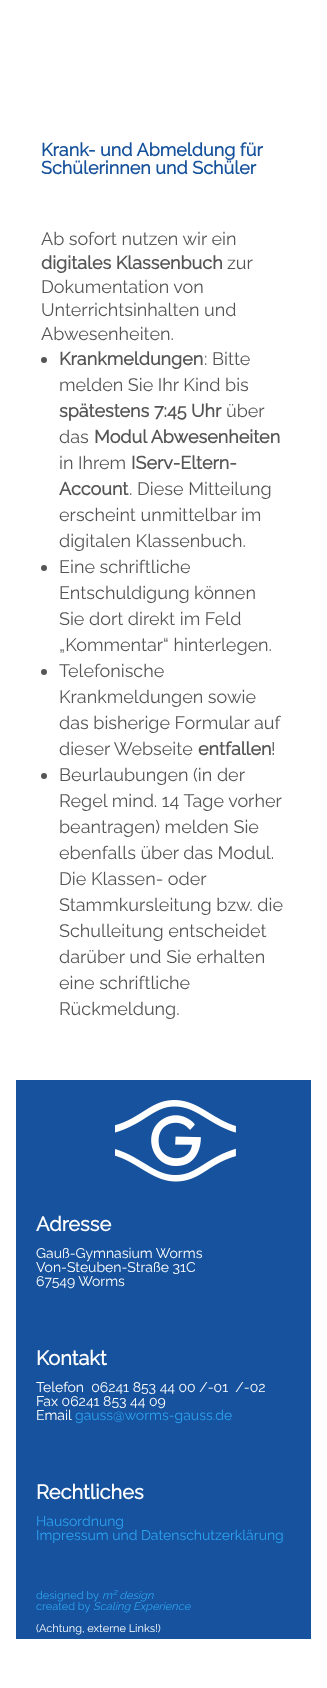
<svg xmlns="http://www.w3.org/2000/svg" width="327" height="1688">
	<rect width="100%" height="100%" fill="#FFFFFF" />
	<g font-family="Raleway" font-size="18" font-weight="700" fill="#16529C">
		<text x="41" y="156">Krank- und Abmeldung für</text>
		<text x="41" y="174">Schülerinnen und Schüler</text>
	</g>
	<text x="41" y="245" font-family="Raleway" font-size="18" font-weight="100" fill="#555555">Ab sofort nutzen wir ein</text>
	<text x="41" y="269" font-family="Raleway" font-size="18" font-weight="700" fill="#555555">digitales Klassenbuch</text>
	<g font-family="Raleway" font-size="18" font-weight="100" fill="#555555">
		<text x="227" y="269">zur</text>
		<text x="41" y="293">Dokumentation von</text>
		<text x="41" y="316">Unterrichtsinhalten und</text>
		<text x="41" y="340">Abwesenheiten.</text>
	</g>
	<circle cx="44" cy="360" r="3" fill="#555555" />
	<text x="59" y="365" font-family="Raleway" font-size="18" font-weight="700" fill="#555555">Krankmeldungen</text>
	<g font-family="Raleway" font-size="18" font-weight="100" fill="#555555">
		<text x="204" y="365">: Bitte</text>
		<text x="59" y="391">melden Sie Ihr Kind bis</text>
	</g>
	<text x="59" y="417" font-family="Raleway" font-size="18" font-weight="700" fill="#555555">spätestens 7:45 Uhr</text>
	<g font-family="Raleway" font-size="18" font-weight="100" fill="#555555">
		<text x="226" y="417">über</text>
		<text x="59" y="443">das</text>
	</g>
	<text x="94" y="443" font-family="Raleway" font-size="18" font-weight="700" fill="#555555">Modul Abwesenheiten</text>
	<text x="59" y="469" font-family="Raleway" font-size="18" font-weight="100" fill="#555555">in Ihrem</text>
	<g font-family="Raleway" font-size="18" font-weight="700" fill="#555555">
		<text x="131" y="469">IServ-Eltern-</text>
		<text x="59" y="495">Account</text>
	</g>
	<g font-family="Raleway" font-size="18" font-weight="100" fill="#555555">
		<text x="129" y="495">. Diese Mitteilung</text>
		<text x="59" y="521">erscheint unmittelbar im</text>
		<text x="59" y="547">digitalen Klassenbuch.</text>
	</g>
	<circle cx="44" cy="568" r="3" fill="#555555" />
	<g font-family="Raleway" font-size="18" font-weight="100" fill="#555555">
		<text x="59" y="573">Eine schriftliche</text>
		<text x="59" y="599">Entschuldigung können</text>
		<text x="59" y="625">Sie dort direkt im Feld</text>
		<text x="59" y="651">„Kommentar“ hinterlegen.</text>
	</g>
	<circle cx="44" cy="672" r="3" fill="#555555" />
	<g font-family="Raleway" font-size="18" font-weight="100" fill="#555555">
		<text x="59" y="677">Telefonische</text>
		<text x="59" y="703">Krankmeldungen sowie</text>
		<text x="59" y="729">das bisherige Formular auf</text>
		<text x="59" y="755">dieser Webseite</text>
	</g>
	<text x="198" y="755" font-family="Raleway" font-size="18" font-weight="700" fill="#555555">entfallen</text>
	<text x="271" y="755" font-family="Raleway" font-size="18" font-weight="100" fill="#555555">!</text>
	<circle cx="44" cy="776" r="3" fill="#555555" />
	<g font-family="Raleway" font-size="18" font-weight="100" fill="#555555">
		<text x="59" y="781">Beurlaubungen (in der</text>
		<text x="59" y="807">Regel mind. 14 Tage vorher</text>
		<text x="59" y="833">beantragen) melden Sie</text>
		<text x="59" y="859">ebenfalls über das Modul.</text>
		<text x="59" y="885">Die Klassen- oder</text>
		<text x="59" y="911">Stammkursleitung bzw. die</text>
		<text x="59" y="937">Schulleitung entscheidet</text>
		<text x="59" y="963">darüber und Sie erhalten</text>
		<text x="59" y="989">eine schriftliche</text>
		<text x="59" y="1015">Rückmeldung.</text>
	</g>
	<rect x="16" y="1080" width="295" height="559" fill="#16529D" />
	<image x="115" y="1100" width="121" height="82" href="assets/img1.png" />
	<text x="36" y="1231" font-family="Raleway" font-size="20" font-weight="700" fill="#FFFFFF">Adresse</text>
	<g font-family="Raleway" font-size="14" font-weight="100" fill="#FFFFFF">
		<text x="36" y="1258">Gauß-Gymnasium Worms</text>
		<text x="36" y="1272">Von-Steuben-Straße 31C</text>
		<text x="36" y="1286">67549 Worms</text>
	</g>
	<text x="36" y="1365" font-family="Raleway" font-size="20" font-weight="700" fill="#FFFFFF">Kontakt</text>
	<g font-family="Raleway" font-size="14" font-weight="100" fill="#FFFFFF">
		<text x="36" y="1392" xml:space="preserve">Telefon  06241 853 44 00 /-01  /-02</text>
		<text x="36" y="1406">Fax 06241 853 44 09</text>
		<text x="36" y="1420">Email</text>
	</g>
	<text x="75" y="1420" font-family="Raleway" font-size="14" font-weight="100" fill="#2EA3F2">gauss@worms-gauss.de</text>
	<text x="36" y="1499" font-family="Raleway" font-size="20" font-weight="700" fill="#FFFFFF">Rechtliches</text>
	<g font-family="Raleway" font-size="14" font-weight="100" fill="#2EA3F2">
		<text x="36" y="1526">Hausordnung</text>
		<text x="36" y="1540">Impressum und Datenschutzerklärung</text>
	</g>
	<text x="36" y="1599" font-family="Raleway" font-size="11" font-weight="100" fill="#2EA3F2">designed by</text>
	<text x="102" y="1599" font-family="Raleway" font-size="11" font-weight="100" font-style="italic" fill="#2EA3F2">m² design</text>
	<text x="36" y="1610" font-family="Raleway" font-size="11" font-weight="100" fill="#2EA3F2">created by</text>
	<text x="93" y="1610" font-family="Raleway" font-size="11" font-weight="100" font-style="italic" fill="#2EA3F2">Scaling Experience</text>
	<text x="36" y="1632" font-family="Raleway" font-size="11" font-weight="100" fill="#FFFFFF">(Achtung, externe Links!)</text>
</svg>
